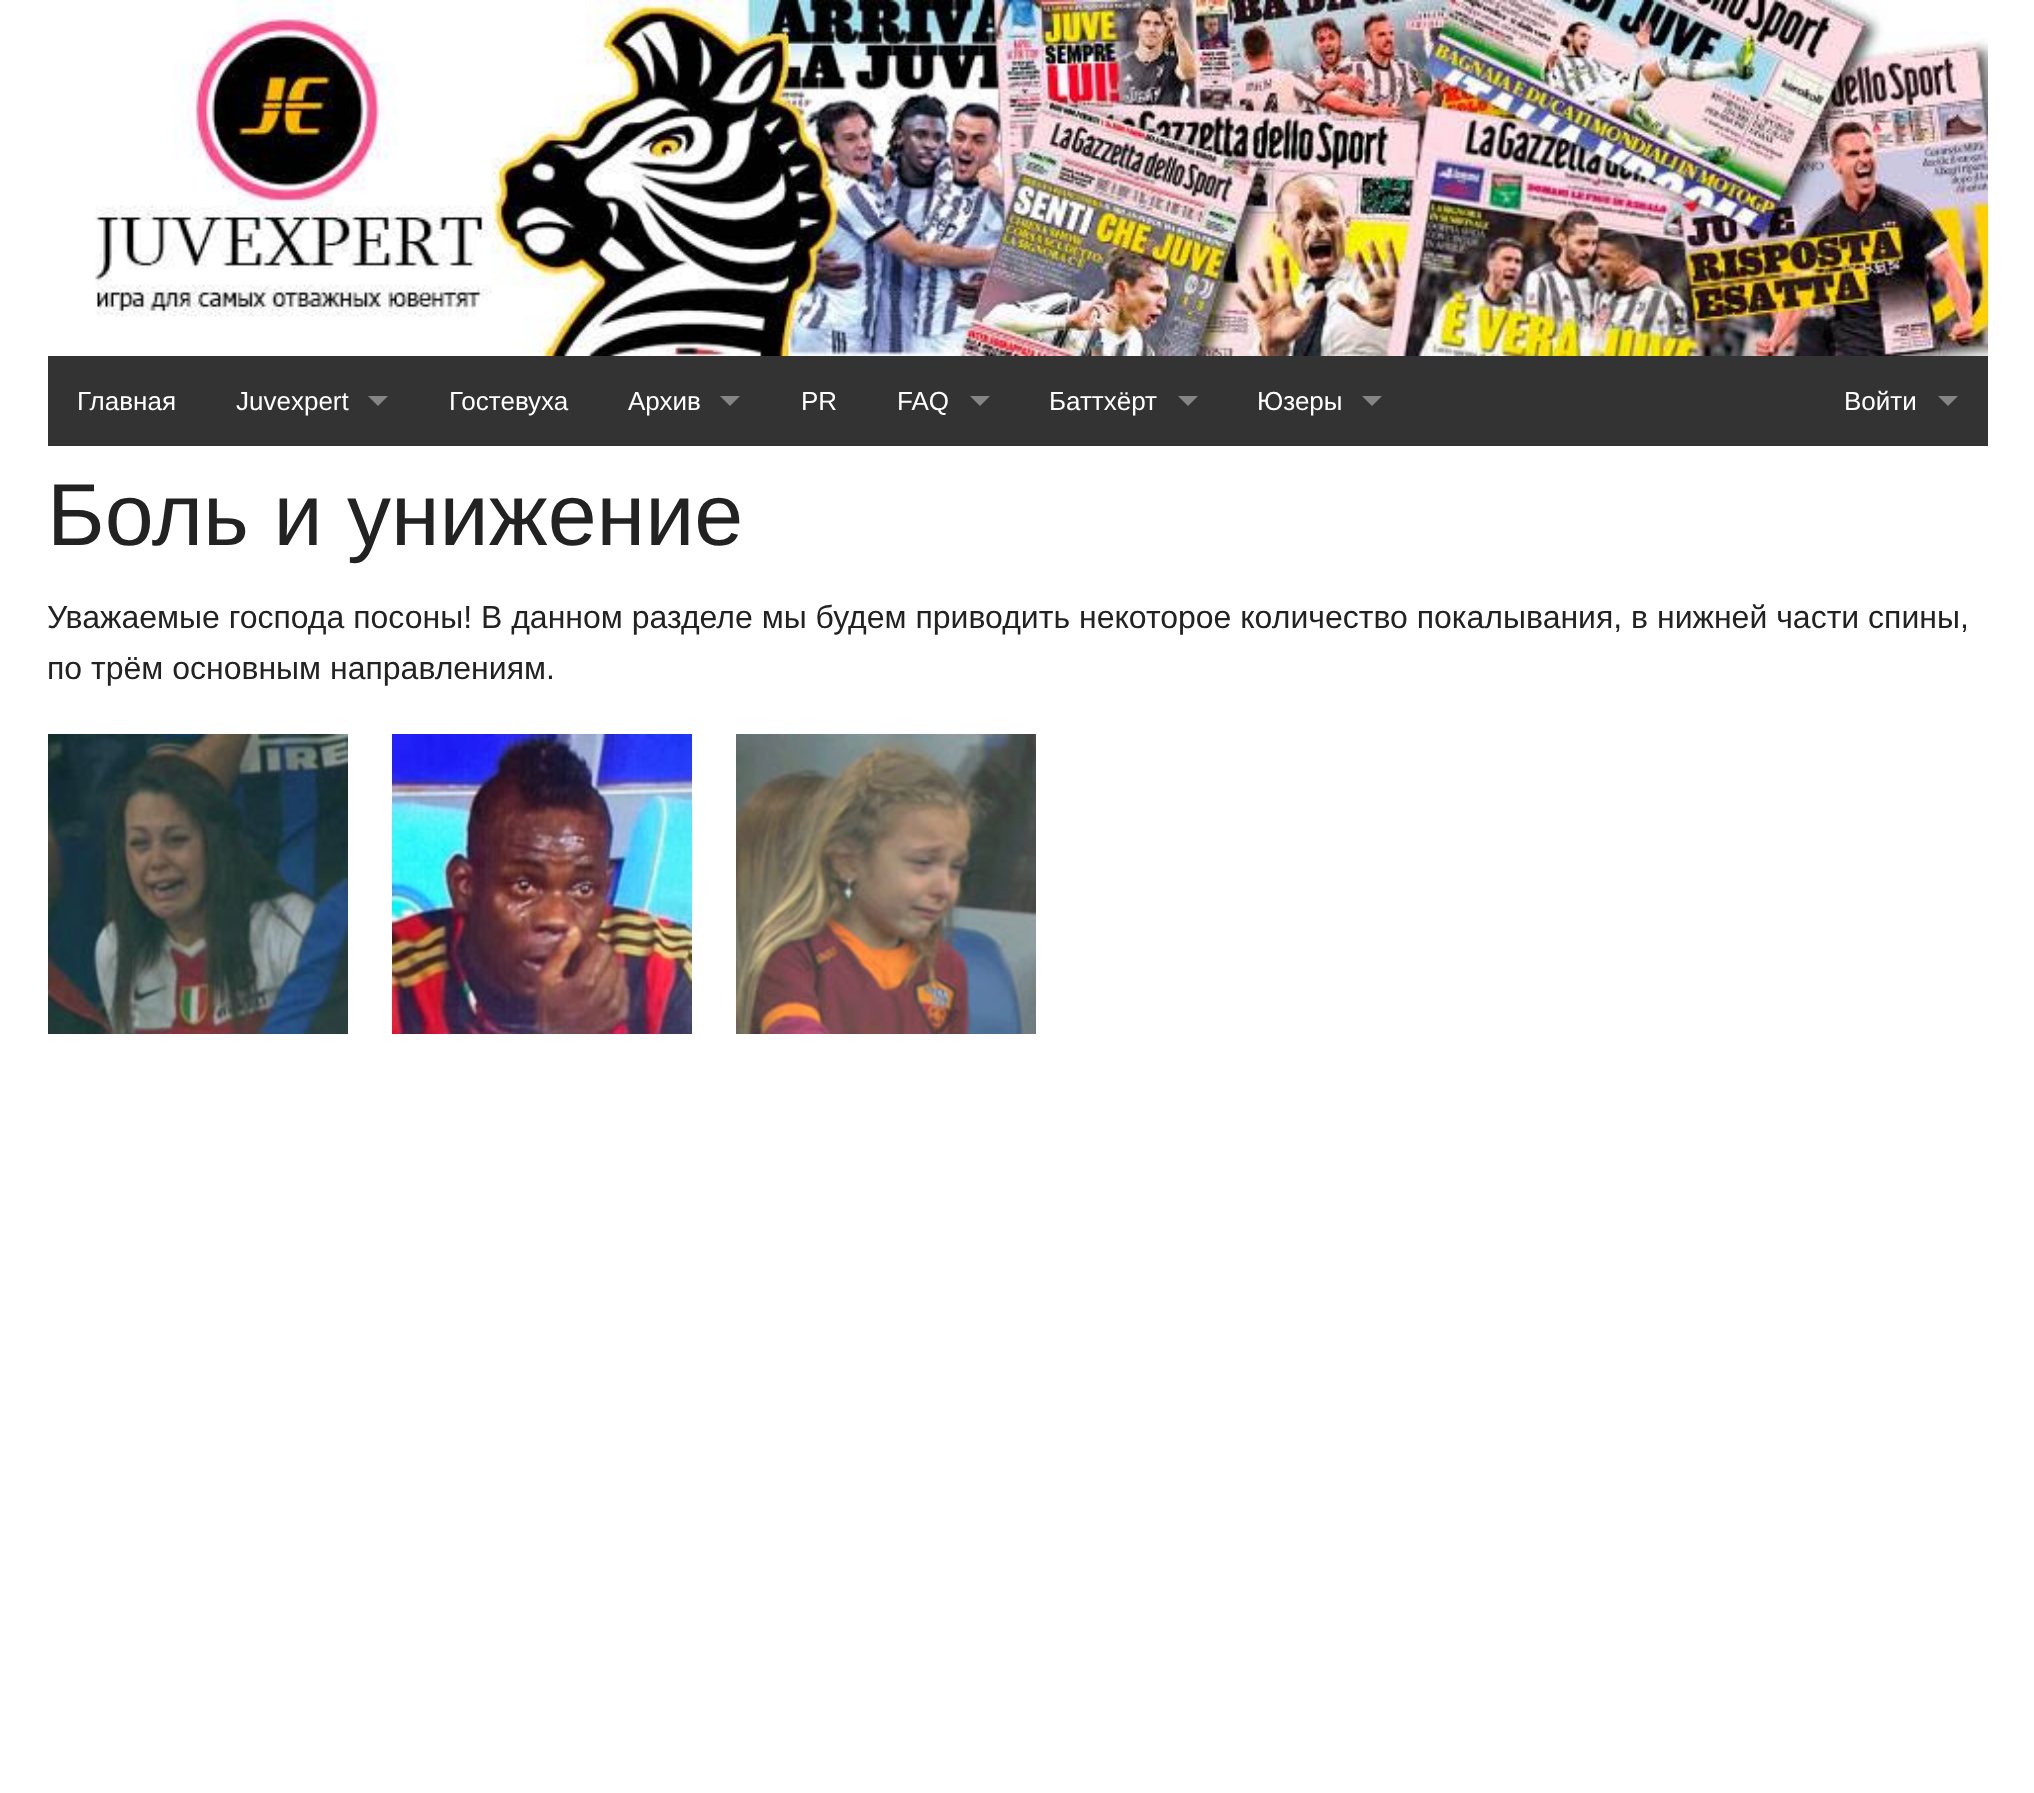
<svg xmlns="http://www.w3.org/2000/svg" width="2034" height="1793">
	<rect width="100%" height="100%" fill="#FFFFFF" />
	<image x="95" y="0" width="1893" height="356" href="assets/img1.png" />
	<rect x="48" y="356" width="1940" height="90" fill="#333333" />
	<g font-family="Liberation Sans" font-size="26" fill="#FFFFFF">
		<text x="77" y="410">Главная</text>
		<text x="236" y="410">Juvexpert</text>
	</g>
	<path d="M368 396H388L378 406Z" fill="#858585" />
	<g font-family="Liberation Sans" font-size="26" fill="#FFFFFF">
		<text x="449" y="410">Гостевуха</text>
		<text x="628" y="410">Архив</text>
	</g>
	<path d="M720 396H740L730 406Z" fill="#858585" />
	<g font-family="Liberation Sans" font-size="26" fill="#FFFFFF">
		<text x="801" y="410">PR</text>
		<text x="897" y="410">FAQ</text>
	</g>
	<path d="M970 396H990L980 406Z" fill="#858585" />
	<text x="1049" y="410" font-family="Liberation Sans" font-size="26" fill="#FFFFFF">Баттхёрт</text>
	<path d="M1178 396H1198L1188 406Z" fill="#858585" />
	<text x="1257" y="410" font-family="Liberation Sans" font-size="26" fill="#FFFFFF">Юзеры</text>
	<path d="M1362 396H1382L1372 406Z" fill="#858585" />
	<text x="1844" y="410" font-family="Liberation Sans" font-size="26" fill="#FFFFFF">Войти</text>
	<path d="M1938 396H1958L1948 406Z" fill="#858585" />
	<text x="47" y="545" font-family="Liberation Sans" font-size="88" fill="#222222">Боль и унижение</text>
	<g font-family="Liberation Sans" font-size="32" fill="#222222">
		<text x="47" y="628">Уважаемые господа посоны! В данном разделе мы будем приводить некоторое количество покалывания, в нижней части спины,</text>
		<text x="47" y="679">по трём основным направлениям.</text>
	</g>
	<image x="48" y="734" width="300" height="300" href="assets/img2.png" />
	<image x="392" y="734" width="300" height="300" href="assets/img3.png" />
	<image x="736" y="734" width="300" height="300" href="assets/img4.png" />
</svg>
